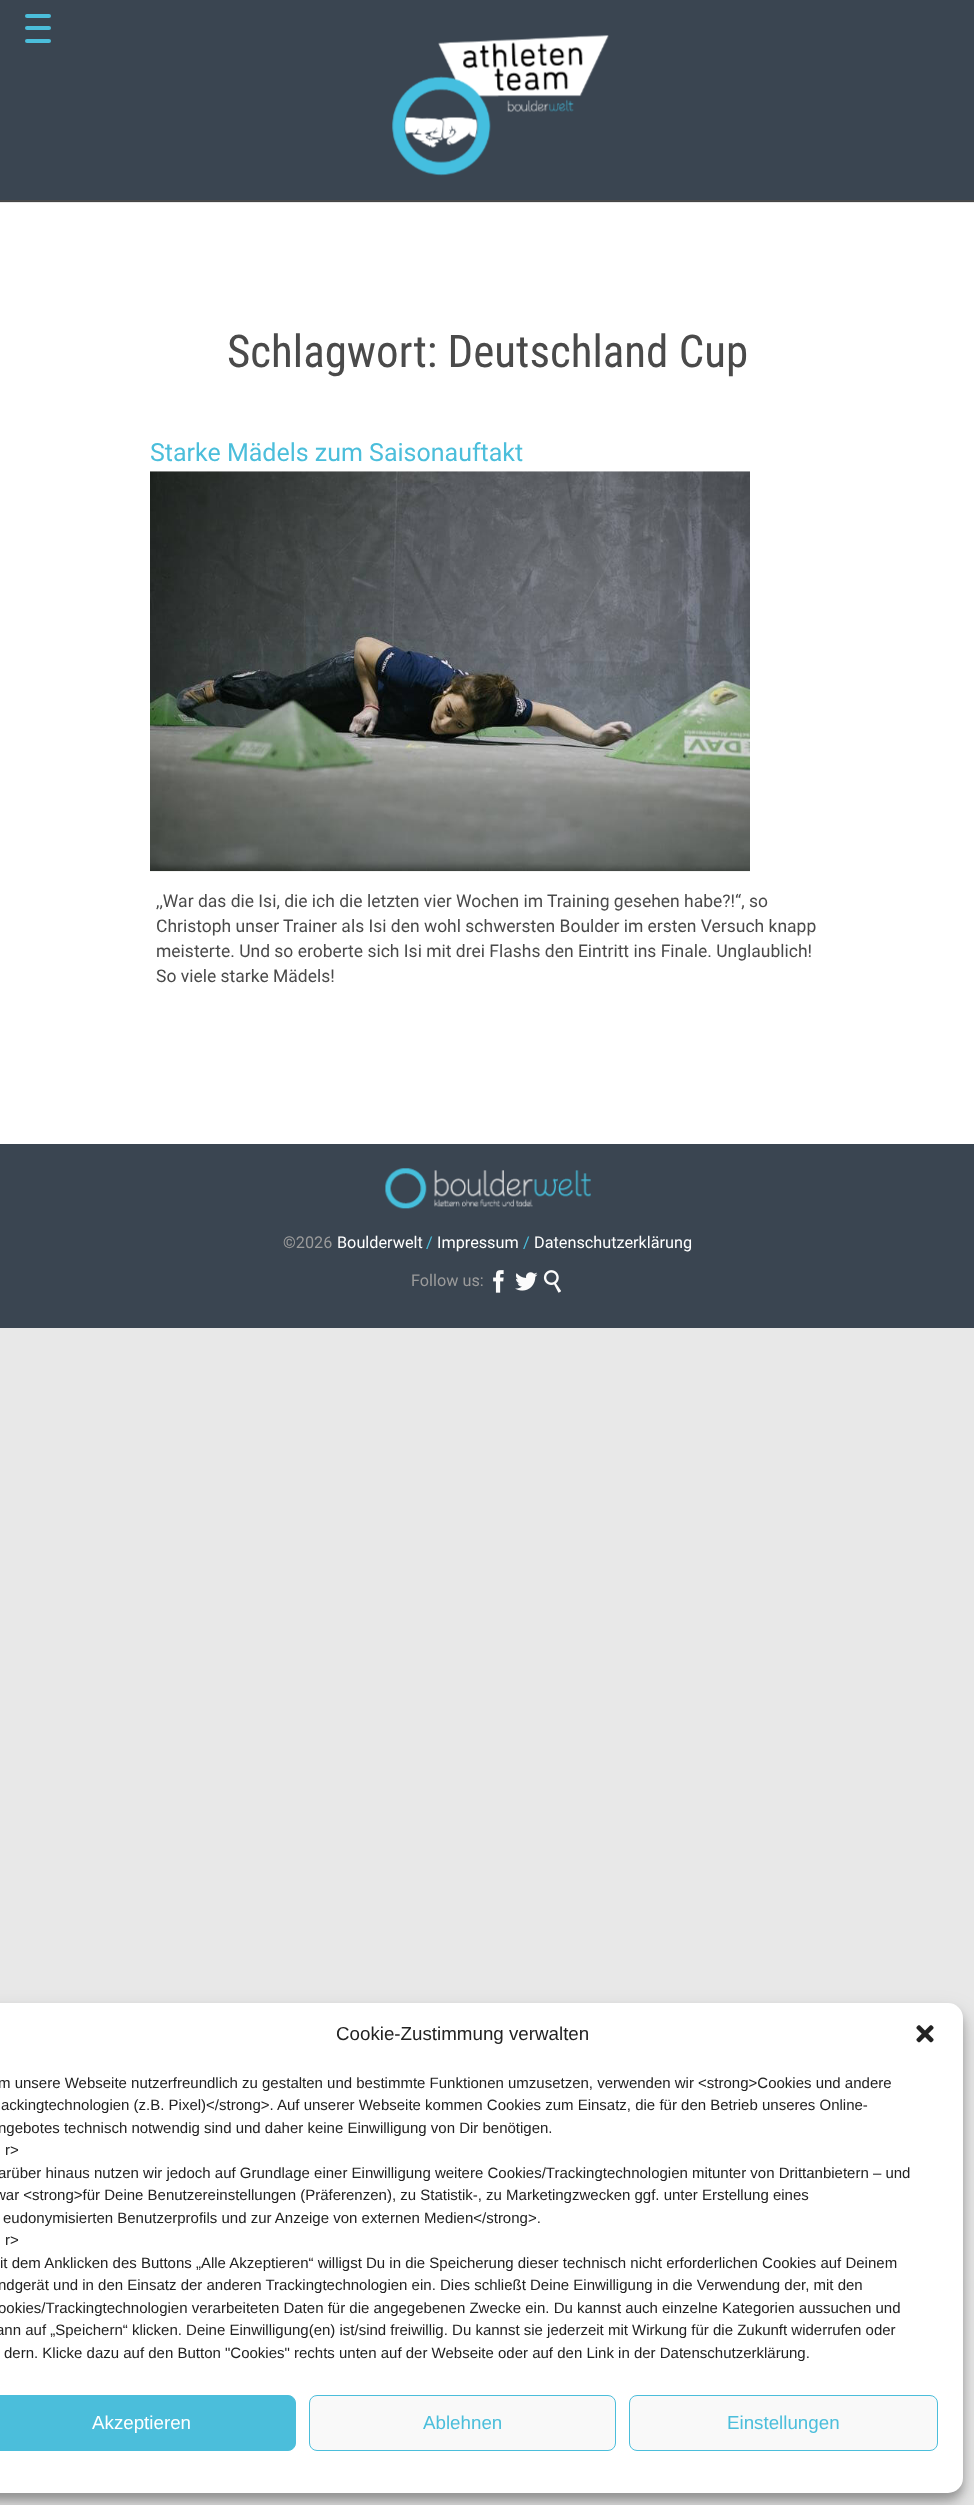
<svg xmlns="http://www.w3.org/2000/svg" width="974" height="2505">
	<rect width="100%" height="100%" fill="#E8E8E8" />
	<rect x="0" y="0" width="974" height="200" fill="#3A4551" />
	<rect x="25" y="26" width="26" height="4" rx="2" fill="#4BBEDB" />
	<rect x="25" y="14" width="26" height="4" rx="2" fill="#4BBEDB" />
	<rect x="25" y="39" width="26" height="4" rx="2" fill="#4BBEDB" />
	<rect x="0" y="201" width="974" height="1" fill="#454545" />
	<rect x="0" y="200" width="974" height="1" fill="#4A4A4A" />
	<image x="392" y="35" width="217" height="141" href="assets/img1.png" />
	<rect x="0" y="203" width="974" height="941" fill="#FFFFFF" />
	<text x="227" y="367" font-family="Roboto Condensed" font-size="45" fill="#4A4A4A">Schlagwort: Deutschland Cup</text>
	<text x="150" y="461" font-family="Roboto" font-size="25" fill="#4BBEDB">Starke Mädels zum Saisonauftakt</text>
	<image x="150" y="471" width="600" height="401" href="assets/img2.png" />
	<g font-family="Roboto" font-size="17.5" fill="#4A4A4A">
		<text x="156" y="907">,,War das die Isi, die ich die letzten vier Wochen im Training gesehen habe?!“, so</text>
		<text x="156" y="932">Christoph unser Trainer als Isi den wohl schwersten Boulder im ersten Versuch knapp</text>
		<text x="156" y="957">meisterte. Und so eroberte sich Isi mit drei Flashs den Eintritt ins Finale. Unglaublich!</text>
		<text x="156" y="982">So viele starke Mädels!</text>
	</g>
	<rect x="0" y="1144" width="974" height="184" fill="#3A4551" />
	<image x="385" y="1168" width="206" height="41" href="assets/img3.png" />
	<text x="283" y="1248" font-family="Roboto" font-size="16.25" fill="#9B9B9B">©2026</text>
	<text x="337" y="1248" font-family="Roboto" font-size="16.25" fill="#FFFFFF">Boulderwelt</text>
	<text x="426" y="1248" font-family="Roboto" font-size="16.25" fill="#4BBEDB">/</text>
	<text x="437" y="1248" font-family="Roboto" font-size="16.25" fill="#FFFFFF">Impressum</text>
	<text x="523" y="1248" font-family="Roboto" font-size="16.25" fill="#4BBEDB">/</text>
	<text x="534" y="1248" font-family="Roboto" font-size="16.25" fill="#FFFFFF">Datenschutzerklärung</text>
	<text x="411" y="1286" font-family="Roboto" font-size="16.25" fill="#9B9B9B">Follow us:</text>
	<image x="493" y="1270" width="11" height="23" href="assets/img4.png" />
	<image x="515" y="1272" width="23" height="19" href="assets/img5.png" />
	<image x="543" y="1270" width="18" height="23" href="assets/img6.png" />
	<rect x="-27" y="2010" width="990" height="490" rx="15" fill="#000000" fill-opacity="0.23" filter="blur(4px)" />
	<rect x="-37" y="2015" width="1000" height="490" rx="15" fill="#000000" fill-opacity="0.19" filter="blur(12.5px)" />
	<rect x="-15" y="2003" width="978" height="490" rx="15" fill="#FFFFFF" />
	<text x="336" y="2040" font-family="Liberation Sans" font-size="18.75" fill="#222222">Cookie-Zustimmung verwalten</text>
	<image x="916" y="2025" width="18" height="18" href="assets/img7.png" />
	<g font-family="Liberation Sans" font-size="15" fill="#222222">
		<text x="-2" y="2088">m unsere Webseite nutzerfreundlich zu gestalten und bestimmte Funktionen umzusetzen, verwenden wir &lt;strong&gt;Cookies und andere</text>
		<text x="1" y="2110">ackingtechnologien (z.B. Pixel)&lt;/strong&gt;. Auf unserer Webseite kommen Cookies zum Einsatz, die für den Betrieb unseres Online-</text>
		<text x="-2" y="2133">ngebotes technisch notwendig sind und daher keine Einwilligung von Dir benötigen.</text>
		<text x="5" y="2155">r&gt;</text>
		<text x="-2" y="2178">arüber hinaus nutzen wir jedoch auf Grundlage einer Einwilligung weitere Cookies/Trackingtechnologien mitunter von Drittanbietern – und</text>
		<text x="-5" y="2200">war &lt;strong&gt;für Deine Benutzereinstellungen (Präferenzen), zu Statistik-, zu Marketingzwecken ggf. unter Erstellung eines</text>
		<text x="3" y="2223">eudonymisierten Benutzerprofils und zur Anzeige von externen Medien&lt;/strong&gt;.</text>
		<text x="5" y="2245">r&gt;</text>
		<text x="0" y="2268">it dem Anklicken des Buttons „Alle Akzeptieren“ willigst Du in die Speicherung dieser technisch nicht erforderlichen Cookies auf Deinem</text>
		<text x="-2" y="2290">ndgerät und in den Einsatz der anderen Trackingtechnologien ein. Dies schließt Deine Einwilligung in die Verwendung der, mit den</text>
		<text x="-2" y="2313">ookies/Trackingtechnologien verarbeiteten Daten für die angegebenen Zwecke ein. Du kannst auch einzelne Kategorien aussuchen und</text>
		<text x="-4" y="2335">ann auf „Speichern“ klicken. Deine Einwilligung(en) ist/sind freiwillig. Du kannst sie jederzeit mit Wirkung für die Zukunft widerrufen oder</text>
		<text x="4" y="2358">dern. Klicke dazu auf den Button "Cookies" rechts unten auf der Webseite oder auf den Link in der Datenschutzerklärung.</text>
	</g>
	<rect x="-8.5" y="2395.5" width="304" height="55" rx="7.5" fill="#4BBEDB" stroke="#4BBEDB" />
	<text x="92" y="2429" font-family="Liberation Sans" font-size="18.75" fill="#FFFFFF">Akzeptieren</text>
	<rect x="309.5" y="2395.5" width="306" height="55" rx="7.5" fill="#F9F9F9" stroke="#4BBEDB" />
	<text x="423" y="2429" font-family="Liberation Sans" font-size="18.75" fill="#4BBEDB">Ablehnen</text>
	<rect x="629.5" y="2395.5" width="308" height="55" rx="7.5" fill="#F9F9F9" stroke="#4BBEDB" />
	<text x="727" y="2429" font-family="Liberation Sans" font-size="18.75" fill="#4BBEDB">Einstellungen</text>
</svg>
